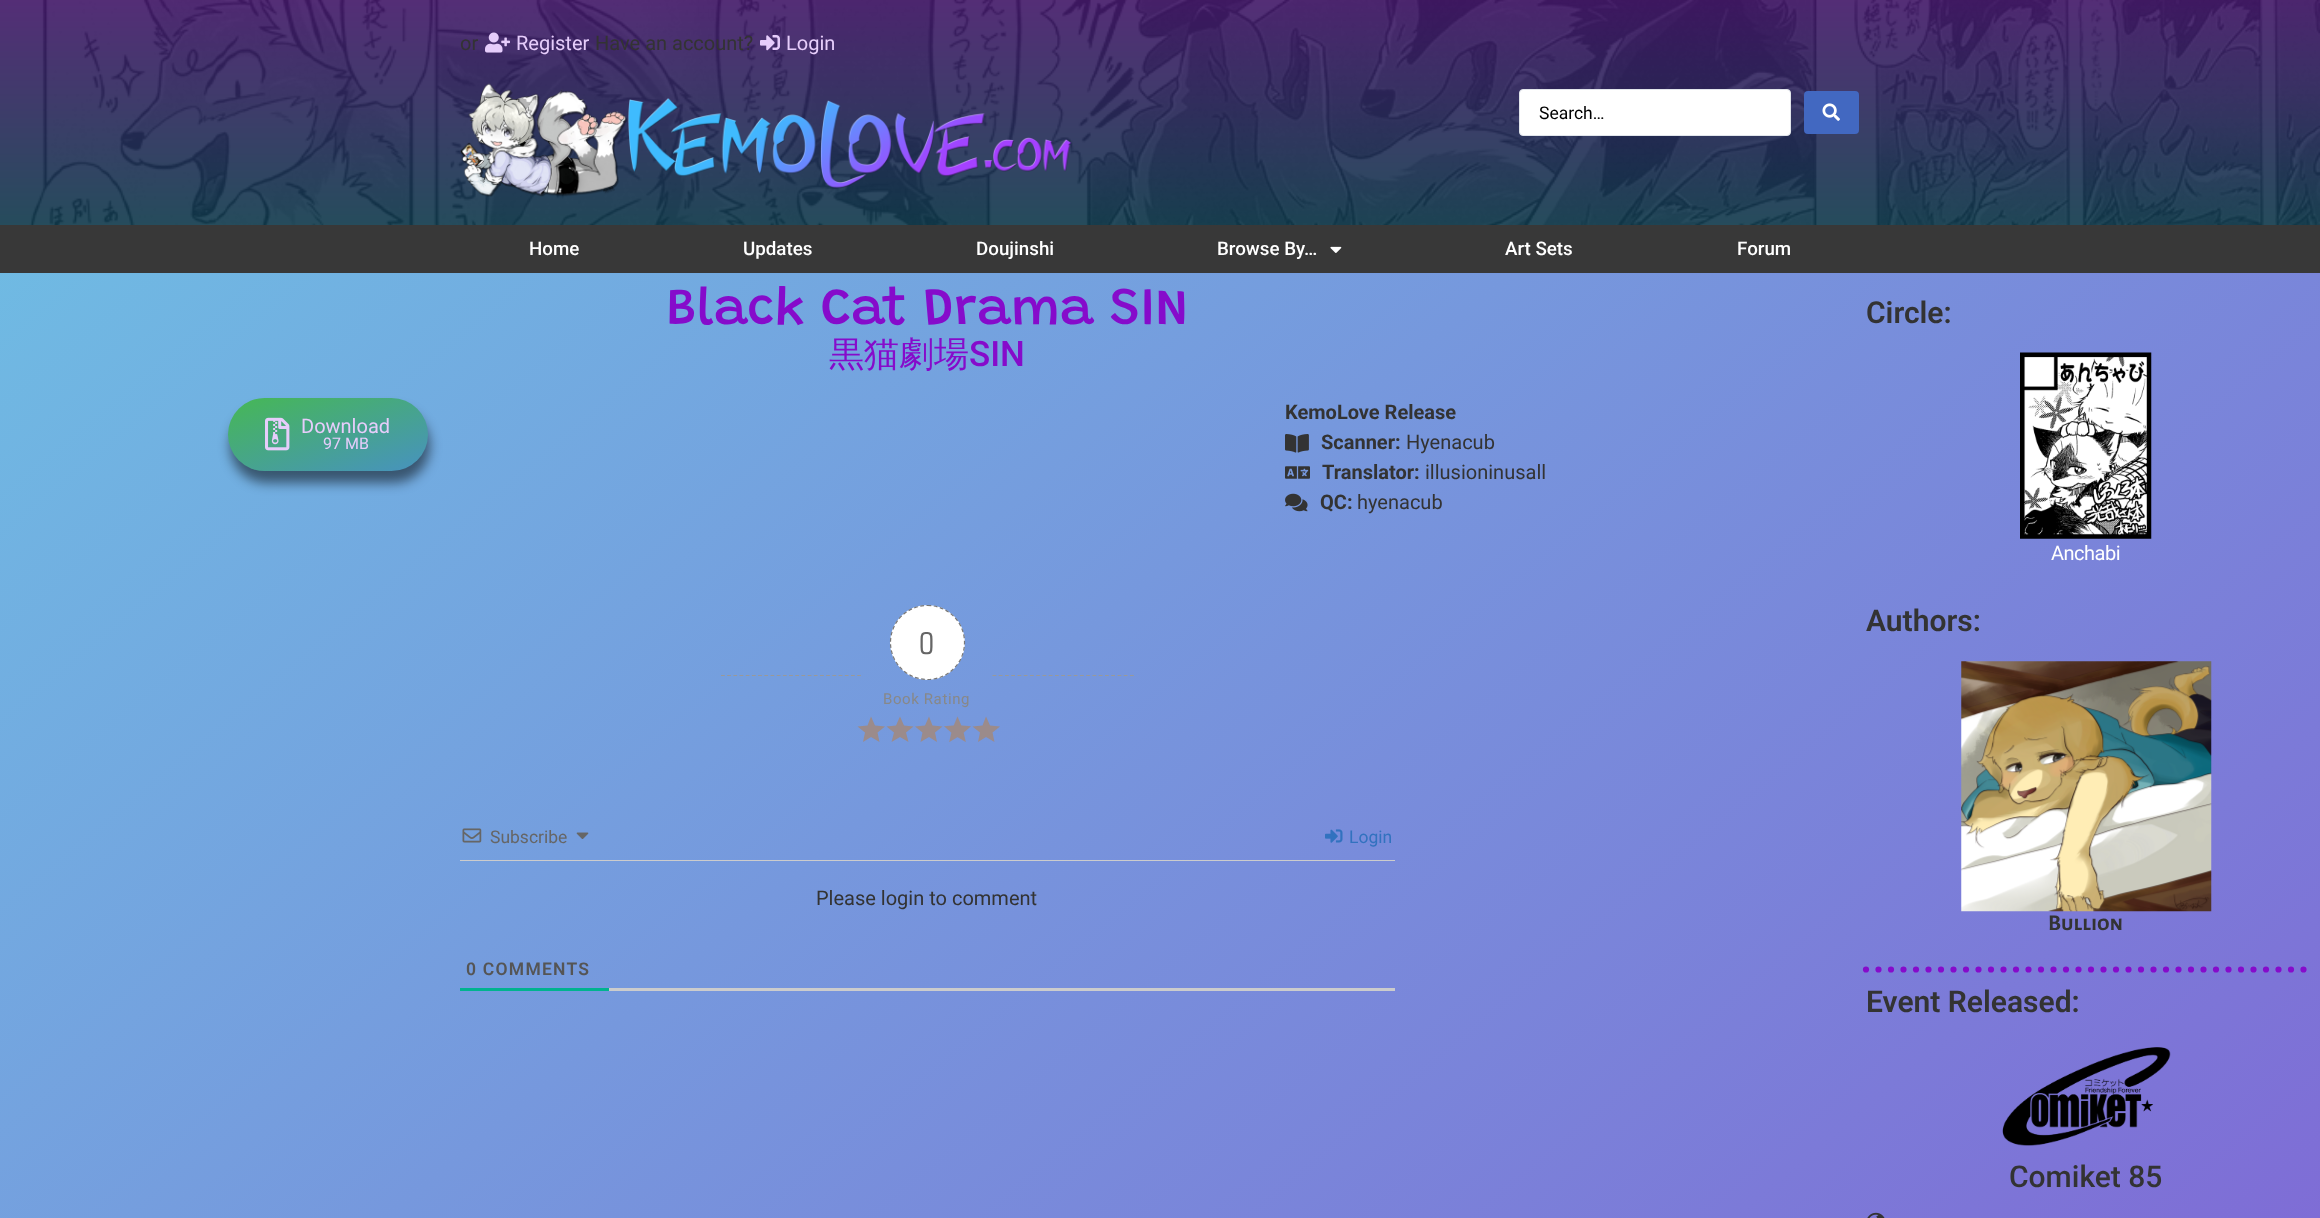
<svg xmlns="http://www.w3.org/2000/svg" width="2320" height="1218">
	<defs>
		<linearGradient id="g1" gradientUnits="userSpaceOnUse" x1="123" y1="-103" x2="2197" y2="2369"><stop offset="0" stop-color="#6EC1E4" /><stop offset="1" stop-color="#8451D1" /></linearGradient>
		<linearGradient id="g2" gradientUnits="userSpaceOnUse" x1="306" y1="371" x2="349" y2="498"><stop offset="0" stop-color="#46B854" /><stop offset="1" stop-color="#4792C0" /></linearGradient>
	</defs>
	<rect width="100%" height="100%" fill="#FFFFFF" />
	<rect x="0" y="273" width="2320" height="945" fill="url(#g1)" />
	<image x="0" y="0" width="2320" height="225" href="assets/img1.png" />
	<text x="460" y="50" font-family="Roboto" font-size="20" fill="#333333">or</text>
	<image x="485" y="32" width="25" height="21" href="assets/img2.png" />
	<text x="516" y="50" font-family="Roboto" font-size="20" fill="#E6CDFB">Register</text>
	<text x="595" y="50" font-family="Roboto" font-size="20" fill="#333333">Have an account?</text>
	<image x="760" y="35" width="20" height="16" href="assets/img3.png" />
	<text x="786" y="50" font-family="Roboto" font-size="20" fill="#E6CDFB">Login</text>
	<image x="460" y="83" width="612" height="114" href="assets/img4.png" />
	<rect x="1519.5" y="89.5" width="271" height="46" rx="3.5" fill="#FFFFFF" stroke="#E1E5EB" />
	<text x="1539" y="119" font-family="Roboto" font-size="17.5" fill="#000000">Search…</text>
	<rect x="1804" y="91" width="55" height="43" rx="4" fill="#4268C1" />
	<image x="1822" y="103" width="18" height="18" href="assets/img5.png" />
	<rect x="0" y="225" width="2320" height="48" fill="#383838" />
	<g font-family="Roboto" font-size="18.75" font-weight="500" fill="#FFFFFF">
		<text x="529" y="255">Home</text>
		<text x="743" y="255">Updates</text>
		<text x="976" y="255">Doujinshi</text>
		<text x="1217" y="255">Browse By…</text>
	</g>
	<image x="1330" y="246" width="12" height="7" href="assets/img6.png" />
	<g font-family="Roboto" font-size="18.75" font-weight="500" fill="#FFFFFF">
		<text x="1505" y="255">Art Sets</text>
		<text x="1737" y="255">Forum</text>
	</g>
	<text x="666" y="324" font-family="Grandstander" font-size="52.5" font-weight="500" fill="#860BCB">Black Cat Drama SIN</text>
	<text x="829" y="366" font-family="WenQuanYi Zen Hei" font-size="35" font-weight="500" fill="#860BCB">黒猫劇場</text>
	<text x="969" y="366" font-family="Roboto" font-size="35" font-weight="500" fill="#860BCB">SIN</text>
	<rect x="230" y="409" width="200" height="74" rx="37" fill="#000000" fill-opacity="0.5" filter="blur(6px)" />
	<rect x="228" y="398" width="200" height="73" rx="36.5" fill="url(#g2)" />
	<image x="265" y="417" width="25" height="34" href="assets/img7.png" />
	<text x="301" y="433" font-family="Roboto" font-size="20" fill="#E6CDFB">Download</text>
	<text x="323" y="449" font-family="Roboto" font-size="16" fill="#E6CDFB">97 MB</text>
	<text x="1285" y="419" font-family="Roboto" font-size="20" font-weight="700" fill="#333333">KemoLove Release</text>
	<image x="1285" y="434" width="24" height="19" href="assets/img8.png" />
	<text x="1321" y="449" font-family="Roboto" font-size="20" font-weight="700" fill="#333333">Scanner:</text>
	<text x="1406" y="449" font-family="Roboto" font-size="20" fill="#333333">Hyenacub</text>
	<image x="1285" y="466" width="25" height="13" href="assets/img9.png" />
	<text x="1322" y="479" font-family="Roboto" font-size="20" font-weight="700" fill="#333333">Translator:</text>
	<text x="1425" y="479" font-family="Roboto" font-size="20" fill="#333333">illusioninusall</text>
	<image x="1285" y="493" width="23" height="19" href="assets/img10.png" />
	<text x="1320" y="509" font-family="Roboto" font-size="20" font-weight="700" fill="#333333">QC:</text>
	<text x="1357" y="509" font-family="Roboto" font-size="20" fill="#333333">hyenacub</text>
	<path d="M721 675.5H861" fill="none" stroke="#999999" stroke-width="1.2" stroke-dasharray="3.75 2.44" />
	<circle cx="927.5" cy="642.5" r="37.5" fill="#FFFFFF" />
	<path d="M927.5 605.5C948 605.5 964.5 622 964.5 642.5C964.5 663 948 679.5 927.5 679.5C907 679.5 890.5 663 890.5 642.5C890.5 622 907 605.5 927.5 605.5Z" fill="none" stroke="#777777" stroke-width="1.2" stroke-dasharray="3.75 2.5" />
	<text x="919" y="654" font-family="'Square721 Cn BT'" font-size="30" fill="#666666">0</text>
	<text x="883" y="704" font-family="Roboto" font-size="15" letter-spacing="0.6" fill="#888888">Book Rating</text>
	<path d="M871 737L879.5 742L877.5 732.5L885 726.5L875 725.5L871 716.5L867.5 725.5L857.5 726.5L865 732.5L863 742ZM900 737L908.5 742L906 732.5L913.5 726.5L904 725.5L900 716.5L896 725.5L886.5 726.5L894 732.5L891.5 742Z" fill="#9B8B8B" />
	<path d="M929 737L937 742L935 732.5L942.5 726.5L932.5 725.5L929 716.5L925 725.5L915 726.5L922.5 732.5L920.5 742Z" fill="#9B8B8B" />
	<image x="944" y="716" width="27" height="26" href="assets/img11.png" />
	<path d="M986 737L994.5 742L992.5 732.5L1000 726.5L990 725.5L986 716.5L982.5 725.5L972.5 726.5L980 732.5L978 742Z" fill="#9B8B8B" />
	<path d="M992.5 675.5H1134" fill="none" stroke="#999999" stroke-width="1.2" stroke-dasharray="3.75 2.5" />
	<rect x="460" y="860" width="935" height="1" fill="#CCCCCC" />
	<image x="462" y="828" width="20" height="15" href="assets/img12.png" />
	<text x="490" y="843" font-family="Roboto" font-size="17.5" fill="#666666">Subscribe</text>
	<image x="576" y="832" width="13" height="7" href="assets/img13.png" />
	<image x="1325" y="829" width="18" height="14" href="assets/img14.png" />
	<text x="1349" y="843" font-family="Roboto" font-size="17.5" fill="#3272BF">Login</text>
	<text x="816" y="905" font-family="Roboto" font-size="20" fill="#333333">Please login to comment</text>
	<rect x="609" y="988" width="786" height="3" fill="#CCCCCC" />
	<rect x="460" y="988" width="149" height="3" fill="#00B38F" />
	<text x="466" y="975" font-family="Roboto" font-size="17.5" font-weight="600" letter-spacing="1.25" fill="#555555">0 COMMENTS</text>
	<text x="1866" y="323" font-family="Roboto" font-size="30" font-weight="600" fill="#333333">Circle:</text>
	<image x="2020" y="352" width="132" height="187" href="assets/img15.png" />
	<text x="2051" y="560" font-family="Roboto" font-size="20" letter-spacing="-0.5" fill="#FFFFFF">Anchabi</text>
	<text x="1866" y="631" font-family="Roboto" font-size="30" font-weight="600" fill="#333333">Authors:</text>
	<image x="1961" y="661" width="251" height="251" href="assets/img16.png" />
	<text x="2048" y="930" font-family="Alegreya Sans SC" font-size="22.5" font-weight="700" fill="#333333">Bullion</text>
	<path d="M1866 969.5H2305" fill="none" stroke="#860BCB" stroke-width="6.2" stroke-linecap="round" stroke-dasharray="0 12.5" />
	<text x="1866" y="1012" font-family="Roboto" font-size="30" font-weight="600" fill="#333333">Event Released:</text>
	<image x="2002" y="1047" width="169" height="99" href="assets/img17.png" />
	<text x="2009" y="1187" font-family="Roboto" font-size="30" font-weight="500" fill="#333333">Comiket 85</text>
	<image x="1867" y="1212" width="18" height="6" href="assets/img18.png" />
</svg>
